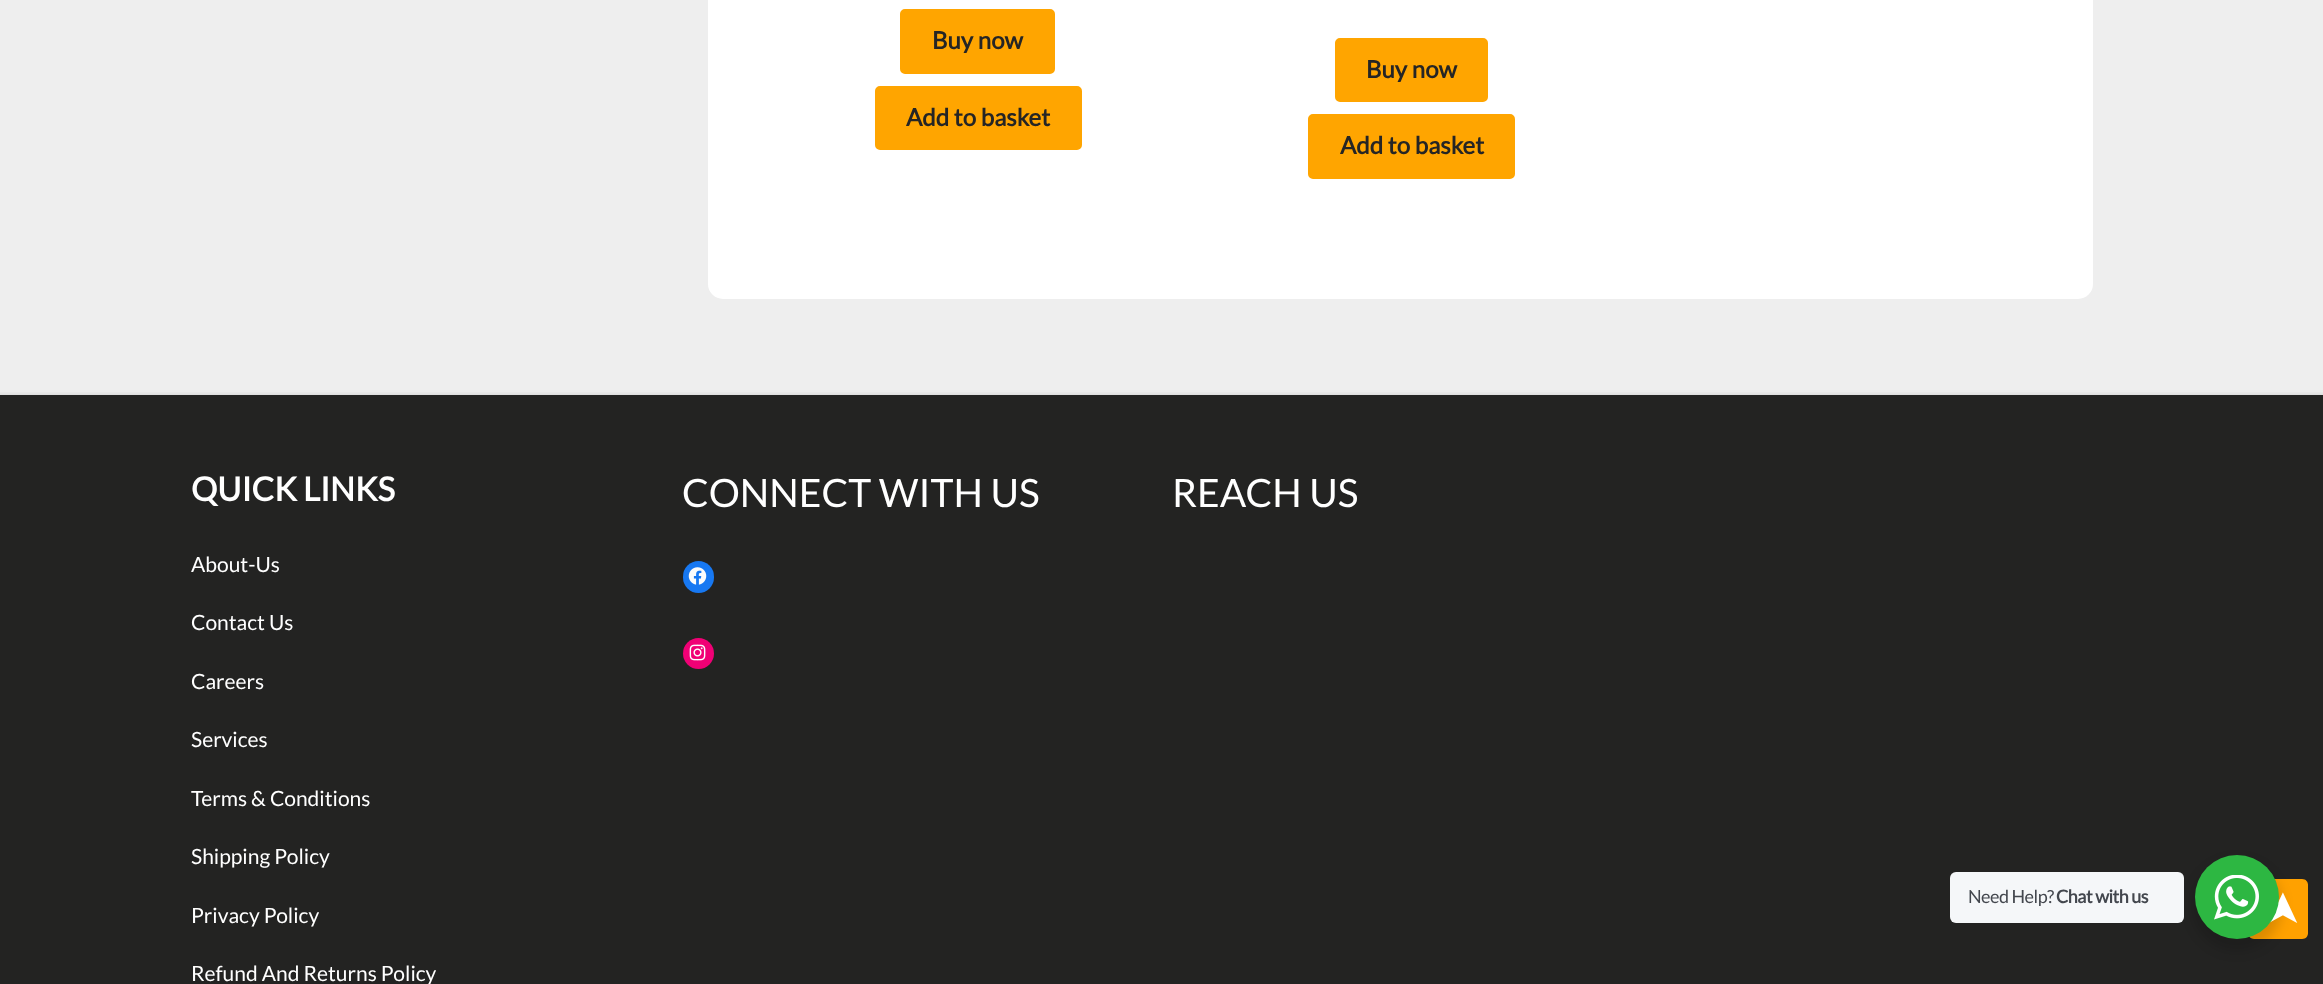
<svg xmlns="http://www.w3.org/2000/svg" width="2323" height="984">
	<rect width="100%" height="100%" fill="#EEEEEE" />
	<rect x="708" y="-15" width="1385" height="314" rx="15" fill="#FFFFFF" />
	<rect x="901" y="10" width="153" height="63" rx="4" fill="#FFA500" stroke="#FFA500" stroke-width="2" />
	<text x="932" y="49" font-family="Lato" font-size="24" font-weight="700" fill="#252525">Buy now</text>
	<rect x="876" y="87" width="205" height="62" rx="4" fill="#FFA500" stroke="#FFA500" stroke-width="2" />
	<text x="906" y="126" font-family="Lato" font-size="24" font-weight="700" fill="#252525">Add to basket</text>
	<rect x="1336" y="39" width="151" height="62" rx="4" fill="#FFA500" stroke="#FFA500" stroke-width="2" />
	<text x="1366" y="78" font-family="Lato" font-size="24" font-weight="700" fill="#252525">Buy now</text>
	<rect x="1309" y="115" width="205" height="63" rx="4" fill="#FFA500" stroke="#FFA500" stroke-width="2" />
	<text x="1340" y="154" font-family="Lato" font-size="24" font-weight="700" fill="#252525">Add to basket</text>
	<rect x="-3" y="393" width="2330" height="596" fill="#D8D8D8" fill-opacity="0.8" filter="blur(1.5px)" />
	<rect x="0" y="395" width="2323" height="589" fill="#232322" />
	<text x="191" y="501" font-family="Lato" font-size="33" font-weight="700" fill="#FFFFFF">QUICK LINKS</text>
	<g font-family="Lato" font-size="21" fill="#FFFFFF">
		<text x="191" y="572">About-Us</text>
		<text x="191" y="630">Contact Us</text>
		<text x="191" y="689">Careers</text>
		<text x="191" y="747">Services</text>
		<text x="191" y="806">Terms &amp; Conditions</text>
		<text x="191" y="864">Shipping Policy</text>
		<text x="191" y="923">Privacy Policy</text>
		<text x="191" y="981">Refund And Returns Policy</text>
	</g>
	<text x="682" y="507" font-family="Lato" font-size="39" fill="#FFFFFF">CONNECT WITH US</text>
	<rect x="683" y="561" width="31" height="32" rx="15.5" fill="#1778F2" />
	<image x="688" y="567" width="19" height="18" href="assets/img1.png" />
	<circle cx="698.5" cy="653.5" r="15.5" fill="#F00075" />
	<image x="689" y="644" width="17" height="17" href="assets/img2.png" />
	<text x="1172" y="507" font-family="Lato" font-size="39" fill="#FFFFFF">REACH US</text>
	<path d="M2248 933V885C2248 882 2251 879 2254 879H2302C2306 879 2308 882 2308 885V933C2308 936 2306 939 2302 939H2254C2251 939 2248 936 2248 933Z" fill="#FFA100" />
	<rect x="2192" y="861" width="90" height="90" rx="45" fill="#000000" fill-opacity="0.14" filter="blur(6px)" />
	<rect x="1950" y="872" width="234" height="51" rx="6" fill="#F5F7F9" />
	<text x="1968" y="903" font-family="Lato" font-size="18" letter-spacing="-0.5" fill="#43474E">Need Help?</text>
	<text x="2056" y="903" font-family="Lato" font-size="18" font-weight="700" letter-spacing="-0.5" fill="#43474E">Chat with us</text>
	<text x="2297" y="928" transform="rotate(-90 2297 928)" font-family="DejaVu Sans" font-size="45" fill="#FFFFFF">➤</text>
	<circle cx="2237" cy="897" r="42" fill="#2DB742" />
	<image x="2214" y="875" width="45" height="45" href="assets/img3.png" />
</svg>
